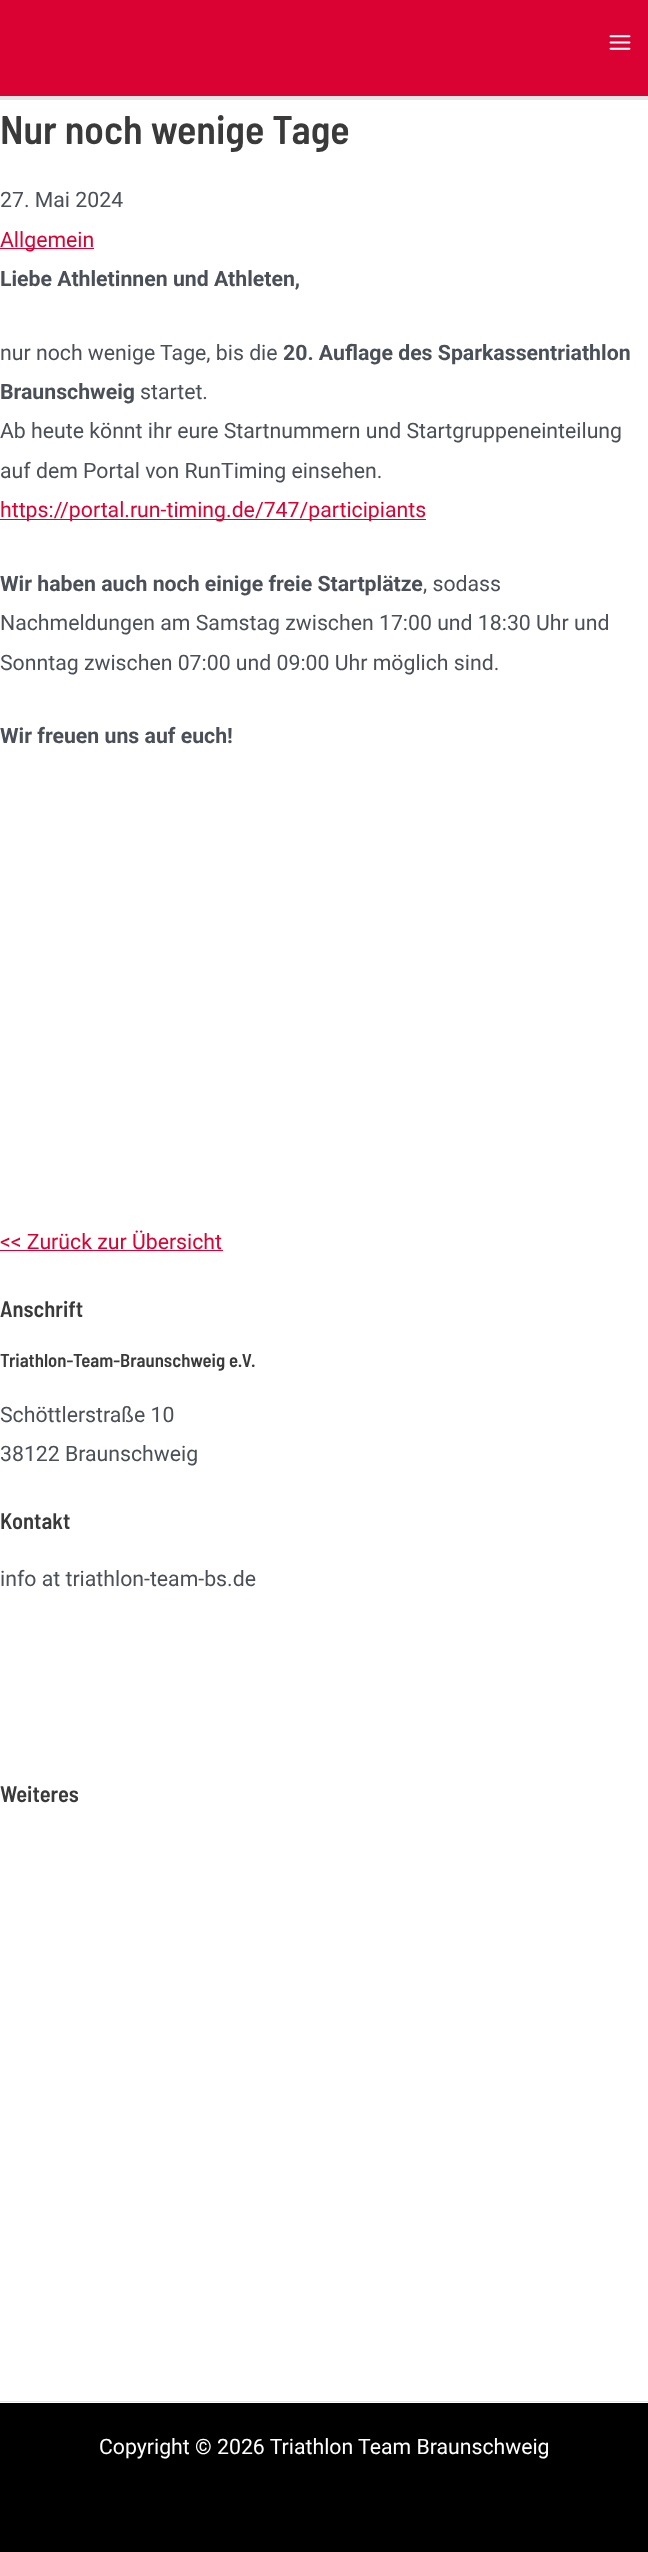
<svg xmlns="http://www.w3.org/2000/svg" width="648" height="2552">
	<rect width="100%" height="100%" fill="#FFFFFF" />
	<rect x="0" y="0" width="648" height="96" fill="#DA0133" />
	<rect x="0" y="96" width="648" height="4" fill="#E5E5E5" />
	<image x="609" y="35" width="22" height="15" href="assets/img1.png" />
	<text x="0" y="144" font-family="Barlow Semi Condensed" font-size="40" font-weight="600" fill="#3A3A3A">Nur noch wenige Tage</text>
	<text x="0" y="207" font-family="Roboto" font-size="21.25" fill="#4B4F58">27. Mai 2024</text>
	<rect x="0" y="248" width="94" height="1" fill="#DA0133" />
	<text x="0" y="247" font-family="Roboto" font-size="21.25" fill="#DA0133">Allgemein</text>
	<text x="0" y="286" font-family="Roboto" font-size="21.25" font-weight="700" fill="#4B4F58">Liebe Athletinnen und Athleten,</text>
	<text x="0" y="360" font-family="Roboto" font-size="21.25" fill="#4B4F58">nur noch wenige Tage, bis die</text>
	<g font-family="Roboto" font-size="21.25" font-weight="700" fill="#4B4F58">
		<text x="283" y="360">20. Auflage des Sparkassentriathlon</text>
		<text x="0" y="399">Braunschweig</text>
	</g>
	<g font-family="Roboto" font-size="21.25" fill="#4B4F58">
		<text x="140" y="399">startet.</text>
		<text x="0" y="438">Ab heute könnt ihr eure Startnummern und Startgruppeneinteilung</text>
		<text x="0" y="478">auf dem Portal von RunTiming einsehen.</text>
	</g>
	<rect x="0" y="519" width="426" height="1" fill="#DA0133" />
	<text x="0" y="517" font-family="Roboto" font-size="21.25" fill="#DA0133">https://portal.run-timing.de/747/participiants</text>
	<text x="0" y="591" font-family="Roboto" font-size="21.25" font-weight="700" fill="#4B4F58">Wir haben auch noch einige freie Startplätze</text>
	<g font-family="Roboto" font-size="21.25" fill="#4B4F58">
		<text x="423" y="591">, sodass</text>
		<text x="0" y="630">Nachmeldungen am Samstag zwischen 17:00 und 18:30 Uhr und</text>
		<text x="0" y="670">Sonntag zwischen 07:00 und 09:00 Uhr möglich sind.</text>
	</g>
	<text x="0" y="743" font-family="Roboto" font-size="21.25" font-weight="700" fill="#4B4F58">Wir freuen uns auf euch!</text>
	<text x="0" y="1249" font-family="Roboto" font-size="21.25" fill="#DA0133">&lt;&lt; Zurück zur Übersicht</text>
	<rect x="0" y="1250" width="223" height="1" fill="#DA0133" />
	<text x="0" y="1317" font-family="Barlow Semi Condensed" font-size="22.5" font-weight="600" fill="#3A3A3A">Anschrift</text>
	<text x="0" y="1367" font-family="Barlow Semi Condensed" font-size="18.75" font-weight="600" fill="#3A3A3A">Triathlon-Team-Braunschweig e.V.</text>
	<g font-family="Roboto" font-size="21.25" fill="#4B4F58">
		<text x="0" y="1422">Schöttlerstraße 10</text>
		<text x="0" y="1461">38122 Braunschweig</text>
	</g>
	<text x="0" y="1529" font-family="Barlow Semi Condensed" font-size="22.5" font-weight="600" fill="#3A3A3A">Kontakt</text>
	<text x="0" y="1586" font-family="Roboto" font-size="21.25" fill="#4B4F58">info at triathlon-team-bs.de</text>
	<text x="0" y="1802" font-family="Barlow Semi Condensed" font-size="22.5" font-weight="600" fill="#3A3A3A">Weiteres</text>
	<rect x="0" y="2403" width="648" height="149" fill="#000000" />
	<rect x="0" y="2401" width="648" height="1" fill="#E5E5E5" />
	<text x="99" y="2454" font-family="Roboto" font-size="21.25" fill="#FFFFFF">Copyright © 2026 Triathlon Team Braunschweig</text>
</svg>
